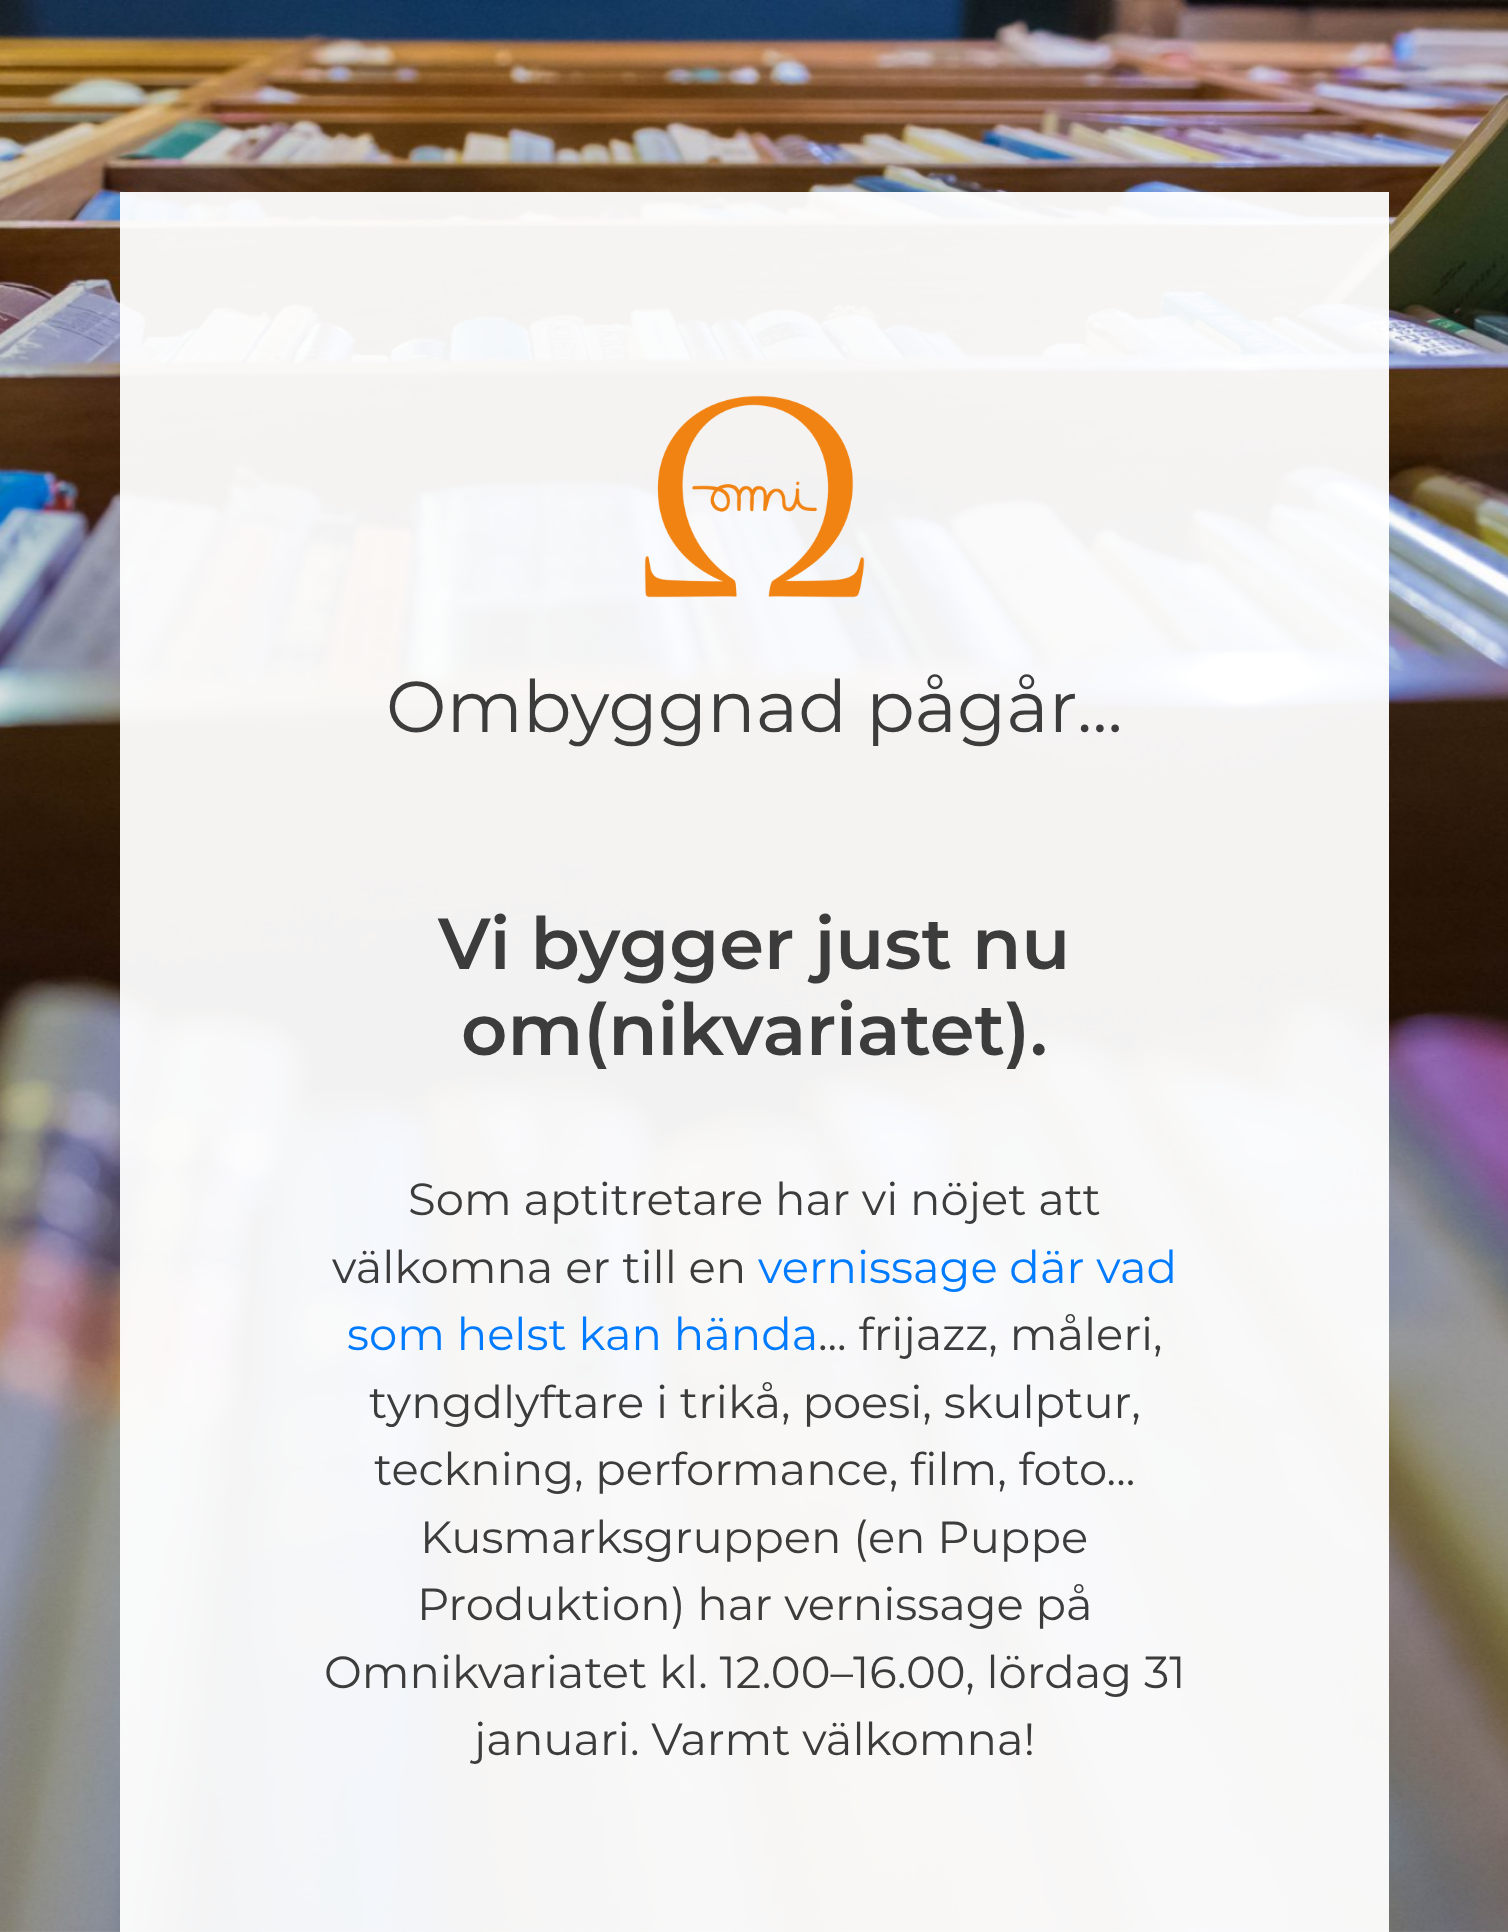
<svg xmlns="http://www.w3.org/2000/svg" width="1508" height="1932">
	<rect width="100%" height="100%" fill="#FFFFFF" />
	<image x="0" y="0" width="1508" height="1932" href="assets/img1.png" />
	<rect x="120" y="192" width="1269" height="1740" fill="#FFFFFF" fill-opacity="0.95" />
	<image x="644" y="395" width="221" height="203" href="assets/img2.png" />
	<text x="386" y="732" font-family="Montserrat" font-size="72" fill="#3C3C3C">Ombyggnad pågår...</text>
	<g font-family="Montserrat" font-size="72" font-weight="600" fill="#3C3C3C">
		<text x="438" y="969">Vi bygger just nu</text>
		<text x="461" y="1055">om(nikvariatet).</text>
	</g>
	<g font-family="Montserrat" font-size="45" fill="#3C3C3C">
		<text x="408" y="1215">Som aptitretare har vi nöjet att</text>
		<text x="332" y="1283">välkomna er till en</text>
	</g>
	<g font-family="Montserrat" font-size="45" fill="#007BFF">
		<text x="758" y="1283">vernissage där vad</text>
		<text x="347" y="1350">som helst kan hända</text>
	</g>
	<g font-family="Montserrat" font-size="45" fill="#3C3C3C">
		<text x="818" y="1350">... frijazz, måleri,</text>
		<text x="369" y="1418">tyngdlyftare i trikå, poesi, skulptur,</text>
		<text x="374" y="1485">teckning, performance, film, foto...</text>
		<text x="420" y="1553">Kusmarksgruppen (en Puppe</text>
		<text x="417" y="1620">Produktion) har vernissage på</text>
		<text x="324" y="1688">Omnikvariatet kl. 12.00–16.00, lördag 31</text>
		<text x="474" y="1755">januari. Varmt välkomna!</text>
	</g>
</svg>
